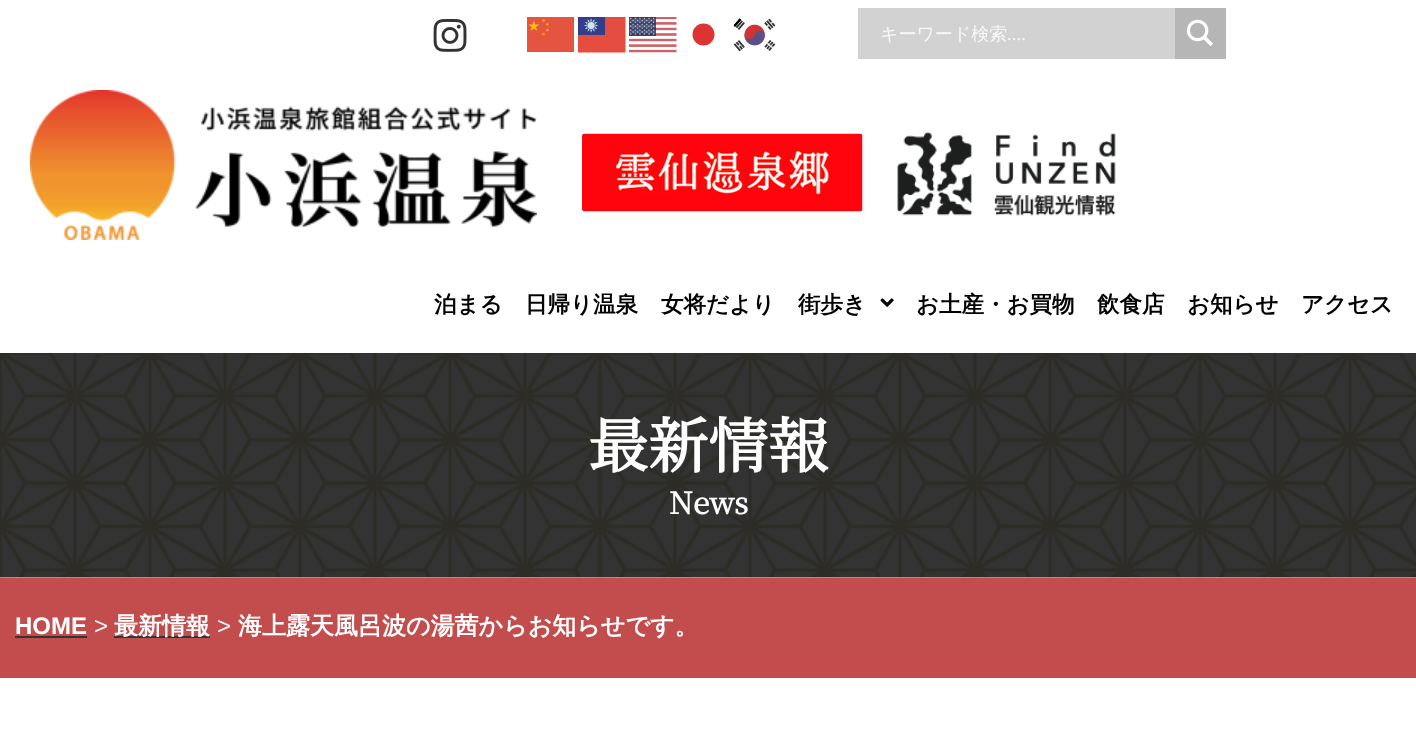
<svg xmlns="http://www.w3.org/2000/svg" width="1416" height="750">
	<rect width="100%" height="100%" fill="#FFFFFF" />
	<image x="433" y="18" width="34" height="34" href="assets/img1.png" />
	<image x="527" y="17" width="47" height="35" href="assets/img2.png" />
	<image x="578" y="17" width="48" height="36" href="assets/img3.png" />
	<image x="629" y="17" width="48" height="36" href="assets/img4.png" />
	<circle cx="703.5" cy="34.5" r="11" fill="#DC3333" />
	<image x="733" y="18" width="43" height="34" href="assets/img5.png" />
	<rect x="858" y="8" width="317" height="51" fill="#D2D2D2" />
	<text x="880" y="40" font-family="WenQuanYi Zen Hei" font-size="18" font-weight="500" fill="#F8F8F8">キーワード検索</text>
	<text x="1007" y="40" font-family="Open Sans" font-size="18" fill="#F8F8F8">....</text>
	<rect x="1175" y="8" width="51" height="51" fill="#B6B6B6" />
	<image x="1186" y="19" width="27" height="28" href="assets/img6.png" />
	<image x="30" y="90" width="507" height="150" href="assets/img7.png" />
	<image x="582" y="133" width="281" height="79" href="assets/img8.png" />
	<image x="897" y="132" width="219" height="84" href="assets/img9.png" />
	<g font-family="WenQuanYi Zen Hei" font-size="22.5" font-weight="700" fill="#000000">
		<text x="434" y="312">泊まる</text>
		<text x="525" y="312">日帰り温泉</text>
		<text x="661" y="312">女将だより</text>
		<text x="798" y="312">街歩き</text>
	</g>
	<image x="880" y="298" width="14" height="9" href="assets/img10.png" />
	<g font-family="WenQuanYi Zen Hei" font-size="22.5" font-weight="700" fill="#000000">
		<text x="916" y="312">お土産・お買物</text>
		<text x="1097" y="312">飲食店</text>
		<text x="1187" y="312">お知らせ</text>
		<text x="1301" y="312">アクセス</text>
	</g>
	<image x="0" y="353" width="1416" height="225" href="assets/img11.png" />
	<text x="588" y="468" font-family="Noto Serif JP" font-size="60" font-weight="700" fill="#FFFFFF">最新情報</text>
	<text x="669" y="514" font-family="Noto Serif JP" font-size="30" font-weight="700" fill="#FFFFFF">News</text>
	<rect x="0" y="578" width="1416" height="100" fill="#C34D4D" />
	<text x="15" y="634" font-family="Liberation Sans" font-size="24" font-weight="700" fill="#FFFFFF">HOME</text>
	<rect x="15" y="636" width="72" height="2" fill="#333333" />
	<text x="94" y="634" font-family="Liberation Sans" font-size="24" fill="#FFFFFF">&gt;</text>
	<rect x="114" y="636" width="96" height="2" fill="#333333" />
	<text x="114" y="634" font-family="WenQuanYi Zen Hei" font-size="24" font-weight="700" fill="#FFFFFF">最新情報</text>
	<text x="217" y="634" font-family="Liberation Sans" font-size="24" fill="#FFFFFF">&gt;</text>
	<text x="238" y="634" font-family="WenQuanYi Zen Hei" font-size="24" font-weight="700" fill="#FFFFFF">海上露天風呂波の湯茜からお知らせです。</text>
</svg>
